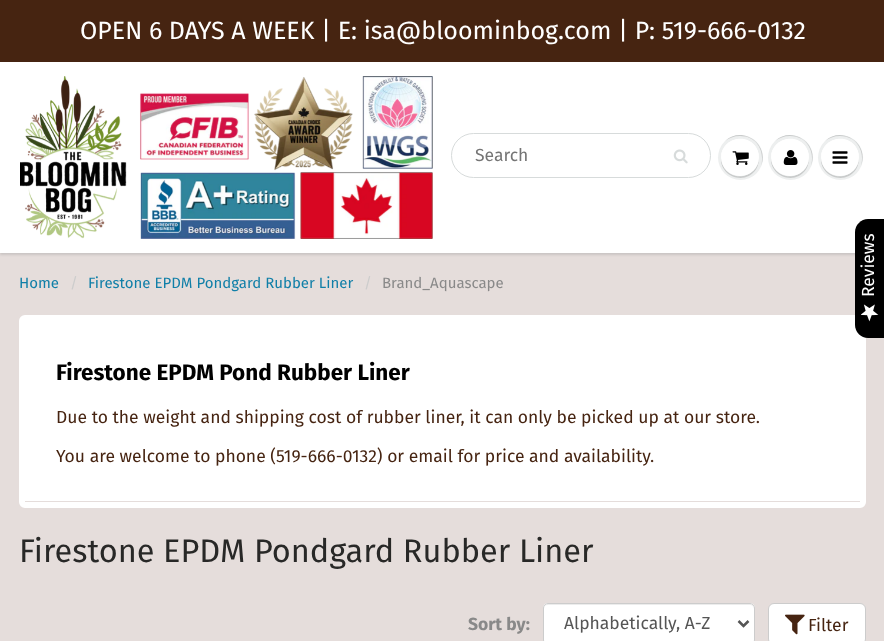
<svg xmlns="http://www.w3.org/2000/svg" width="884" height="641">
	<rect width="100%" height="100%" fill="#462411" />
	<text x="80" y="39" font-family="Fira Sans" font-size="25" fill="#FFFFFF">OPEN 6 DAYS A WEEK | E: isa@bloominbog.com | P: 519-666-0132</text>
	<rect x="0" y="253" width="884" height="388" fill="#E5DDDB" />
	<rect x="0" y="64" width="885" height="191" fill="#0B191C" fill-opacity="0.12" filter="blur(1px)" />
	<rect x="0" y="62" width="884" height="191" fill="#FFFFFF" />
	<image x="20" y="76" width="413" height="163" href="assets/img1.png" />
	<rect x="451.5" y="133.5" width="259" height="44" rx="22" fill="none" stroke="#D7DBDB" />
	<text x="475" y="161" font-family="Fira Sans" font-size="17.5" fill="#757575">Search</text>
	<image x="673" y="149" width="15" height="15" href="assets/img2.png" />
	<circle cx="740.5" cy="157.5" r="22.5" fill="#EDEFEF" />
	<path d="M740 136C758 136 765 153 761 166C770 144 742 125 725 141C729 138 734 136 740 136Z" fill="#C9CBCB" />
	<path d="M721.5 155C717 175 744 187 756 169.5C758.5 165.5 759.5 160 758.5 155C761 174.5 735.5 184.5 724.5 168C722 164 721 159.5 721.5 155Z" fill="#C9CBCB" />
	<rect x="721" y="139" width="38" height="37" rx="18.5" fill="#FFFFFF" />
	<path d="M740 140C753.5 140 759.5 151 758.5 161C759.5 156.5 758.5 151 756 147C744.5 130.5 717.5 141 721.5 161C720.5 151 726.5 140 740 140Z" fill="#FFFFFF" />
	<image x="732" y="151" width="17" height="14" href="assets/img3.png" />
	<circle cx="790.5" cy="157.5" r="22.5" fill="#EDEFEF" />
	<path d="M790 136C808 136 815 153 811 166C820 144 792 125 775 141C779 138 784 136 790 136Z" fill="#C9CBCB" />
	<path d="M771.5 155C767 175 794 187 806 169.5C808.5 165.5 809.5 160 808.5 155C811 174.5 785.5 184.5 774.5 168C772 164 771 159.5 771.5 155Z" fill="#C9CBCB" />
	<rect x="771" y="139" width="38" height="37" rx="18.5" fill="#FFFFFF" />
	<path d="M790 140C803.5 140 809.5 151 808.5 161C809.5 156.5 808.5 151 806 147C794.5 130.5 767.5 141 771.5 161C770.5 151 776.5 140 790 140Z" fill="#FFFFFF" />
	<image x="783" y="150" width="15" height="15" href="assets/img4.png" />
	<circle cx="840.5" cy="157.5" r="22.5" fill="#EDEFEF" />
	<path d="M840 136C858 136 865 153 861 166C870 144 842 125 825 141C829 138 834 136 840 136Z" fill="#C9CBCB" />
	<path d="M821.5 155C817 175 844 187 856 169.5C858.5 165.5 859.5 160 858.5 155C861 174.5 835.5 184.5 824.5 168C822 164 821 159.5 821.5 155Z" fill="#C9CBCB" />
	<rect x="821" y="139" width="38" height="37" rx="18.5" fill="#FFFFFF" />
	<path d="M840 140C853.5 140 859.5 151 858.5 161C859.5 156.5 858.5 151 856 147C844.5 130.5 817.5 141 821.5 161C820.5 151 826.5 140 840 140Z" fill="#FFFFFF" />
	<image x="832" y="151" width="16" height="13" href="assets/img5.png" />
	<text x="19" y="288" font-family="Fira Sans" font-size="15" fill="#107FA8">Home</text>
	<text x="70" y="288" font-family="Fira Sans" font-size="15" fill="#CCCCCC">/</text>
	<text x="88" y="288" font-family="Fira Sans" font-size="15" fill="#107FA8">Firestone EPDM Pondgard Rubber Liner</text>
	<text x="364" y="288" font-family="Fira Sans" font-size="15" fill="#CCCCCC">/</text>
	<text x="382" y="288" font-family="Fira Sans" font-size="15" fill="#898989">Brand_Aquascape</text>
	<rect x="22" y="318" width="841" height="187" rx="3" fill="none" stroke="#FFFFFF" stroke-width="6" />
	<rect x="25" y="321" width="835" height="180" fill="#FFFFFF" />
	<text x="56" y="380" font-family="Fira Sans" font-size="22.5" font-weight="700" fill="#000000">Firestone EPDM Pond Rubber Liner</text>
	<g font-family="Fira Sans" font-size="17.5" fill="#462411">
		<text x="56" y="423">Due to the weight and shipping cost of rubber liner, it can only be picked up at our store.</text>
		<text x="56" y="462">You are welcome to phone (519-666-0132) or email for price and availability.</text>
	</g>
	<text x="19" y="562" font-family="Fira Sans" font-size="32.5" fill="#282827">Firestone EPDM Pondgard Rubber Liner</text>
	<text x="468" y="630" font-family="Fira Sans" font-size="17.5" font-weight="700" fill="#898989">Sort by:</text>
	<rect x="543" y="603" width="212" height="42" rx="5" fill="#FFFFFF" />
	<path d="M548 605H750C752 605 754 607 754 609V608C754 606 752 604 750 604H548C546 604 544 606 544 608V609C544 607 545 605 548 605Z" fill="#ECECEC" />
	<rect x="543.5" y="603.5" width="211" height="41" rx="4.5" fill="none" stroke="#CCCCCC" />
	<path d="M738.5 621L743.5 626L748.5 621" fill="none" stroke="#555555" stroke-width="2.5" />
	<text x="564" y="629" font-family="Fira Sans" font-size="17.5" fill="#555555">Alphabetically, A-Z</text>
	<rect x="768.5" y="603.5" width="97" height="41" rx="5.5" fill="#FFFFFF" stroke="#CCCCCC" />
	<image x="785" y="614" width="20" height="21" href="assets/img6.png" />
	<text x="808" y="631" font-family="Fira Sans" font-size="17.5" fill="#462411">Filter</text>
	<path d="M868 219H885V338H868C861 338 855 332 855 325V232C855 225 861 219 868 219Z" fill="#000000" />
	<text x="874" y="297" transform="rotate(-90 874 297)" font-family="Fira Sans" font-size="17.5" fill="#FFFFFF">Reviews</text>
	<image x="861" y="304" width="18" height="18" href="assets/img7.png" />
</svg>
